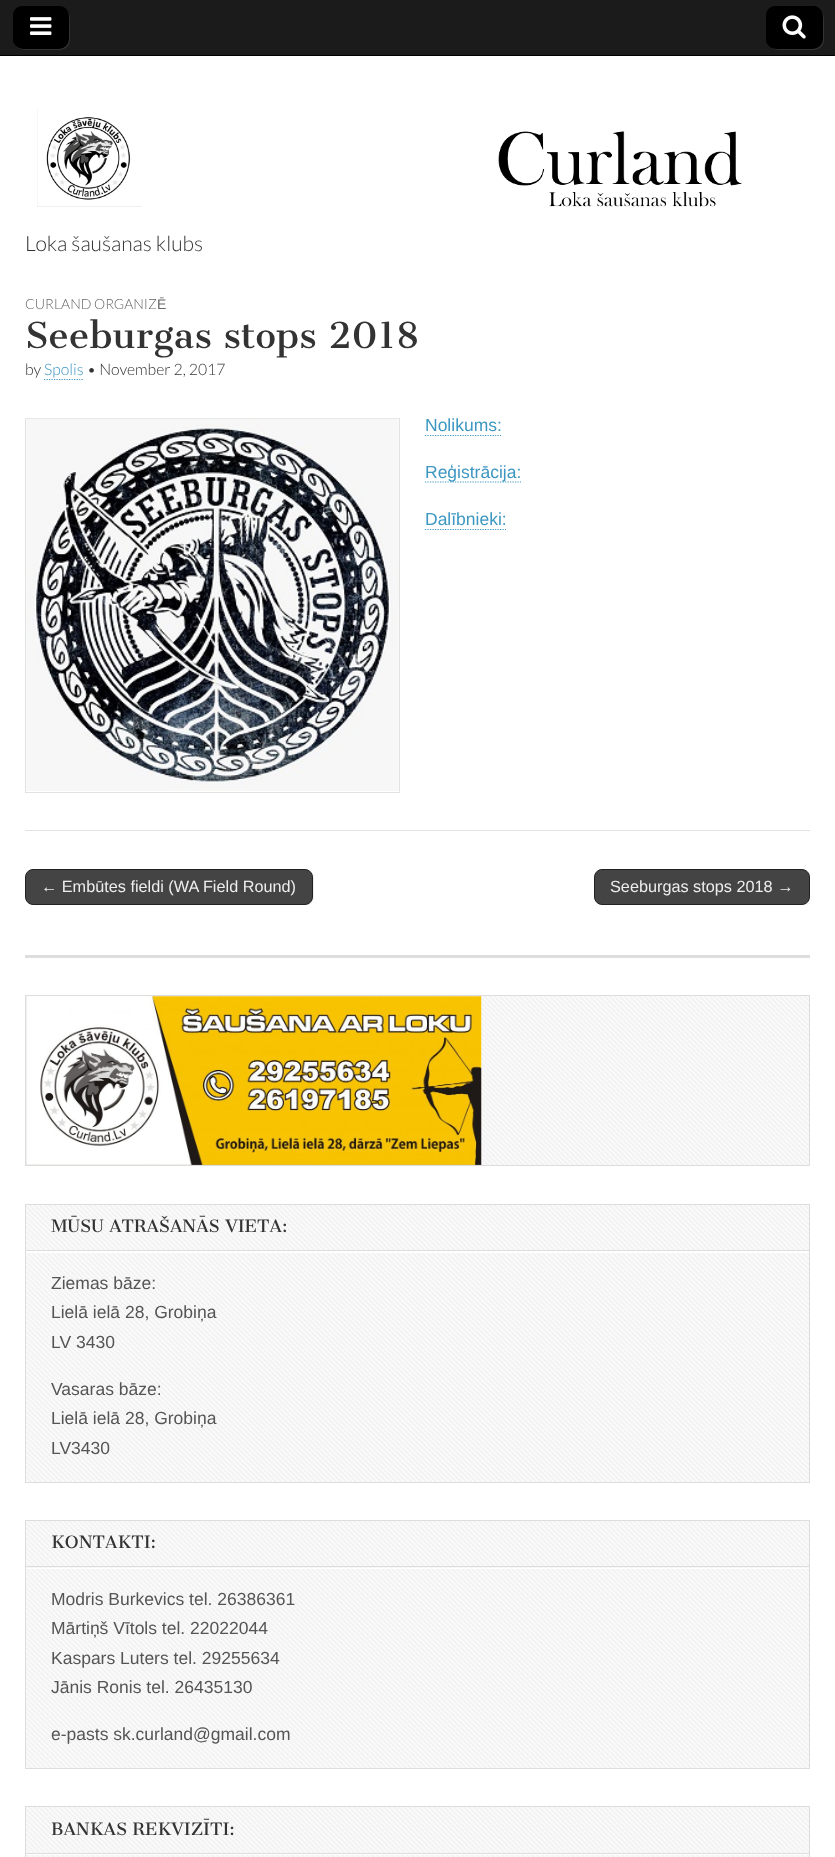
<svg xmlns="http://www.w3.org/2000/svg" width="835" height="1857">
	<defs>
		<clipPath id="clip1"><rect x="25" y="869" width="785" height="36" /></clipPath>
	</defs>
	<rect width="100%" height="100%" fill="#FFFFFF" />
	<rect x="0" y="0" width="835" height="55" fill="#1B1B1B" />
	<rect x="0" y="55" width="835" height="1" fill="#000000" />
	<rect x="14" y="8" width="56" height="42" rx="10" fill="#333333" filter="blur(0.5px)" />
	<rect x="13" y="6" width="56" height="43" rx="10" fill="#000000" />
	<path d="M24 8H60C63 8 66 9 68 12C66 8 63 6 59 6H23C17 6 13 10 13 16V39C13 41 14 44 15 45C13 41 14 34 14 29C14 21 12 8 24 8Z" fill="#000000" />
	<image x="30" y="17" width="22" height="18" href="assets/img1.png" />
	<rect x="768" y="8" width="56" height="42" rx="10" fill="#333333" filter="blur(0.5px)" />
	<rect x="766" y="6" width="57" height="43" rx="10" fill="#000000" />
	<path d="M778 8H814C817 8 821 10 822 13C821 9 817 6 813 6H776C770 6 766 10 766 16V39C766 43 768 46 772 48C766 44 768 35 768 29C768 21 766 8 778 8Z" fill="#000000" />
	<image x="782" y="15" width="24" height="24" href="assets/img2.png" />
	<image x="37" y="109" width="705" height="98" href="assets/img3.png" />
	<text x="25" y="251" font-family="Lato" font-size="21" font-weight="300" fill="#333333">Loka šaušanas klubs</text>
	<rect x="25" y="830" width="785" height="1" fill="#E2E2E2" />
	<text x="25" y="309" font-family="Lato" font-size="14" font-weight="300" fill="#666666">CURLAND ORGANIZ</text>
	<text x="157" y="309" font-family="Liberation Sans" font-size="14" fill="#666666">Ē</text>
	<text x="25" y="348" font-family="Cantata One" font-size="35" fill="#333333">Seeburgas stops 2018</text>
	<text x="25" y="375" font-family="Lato" font-size="15.75" font-weight="300" fill="#333333">by</text>
	<text x="44" y="375" font-family="Lato" font-size="15.75" font-weight="300" fill="#3D97C2">Spolis</text>
	<path d="M44 379.5H84" fill="none" stroke="#3D97C2" stroke-width="1.2" stroke-dasharray="1.25 1.25" />
	<text x="87" y="375" font-family="Lato" font-size="15.75" font-weight="300" fill="#333333">• November 2, 2017</text>
	<rect x="25.5" y="418.5" width="374" height="374" fill="none" stroke="#E2E2E2" />
	<image x="26" y="418" width="373" height="373" href="assets/img4.png" />
	<text x="425" y="431" font-family="Liberation Sans" font-size="17.5" fill="#3D97C2">Nolikums:</text>
	<path d="M425 435.5H501" fill="none" stroke="#3D97C2" stroke-width="1.2" stroke-dasharray="1.25 1.25" />
	<path d="M425 482H521" fill="none" stroke="#3D97C2" stroke-width="1.2" stroke-dasharray="1.25 1.25" />
	<g font-family="Liberation Sans" font-size="17.5" fill="#3D97C2">
		<text x="425" y="478">Reģistrācija:</text>
		<text x="425" y="525">Dalībnieki:</text>
	</g>
	<path d="M425 529.5H506" fill="none" stroke="#3D97C2" stroke-width="1.2" stroke-dasharray="1.25 1.25" />
	<g clip-path="url(#clip1)">
		<path d="M29 904C30 905 32 906 34 906H306C310 906 314 902 314 898V878C314 875 313 873 311 872C312 873 312 875 312 876V898C312 902 309 905 305 905H32C31 905 30 905 29 904Z" fill="#EEEEEE" />
	</g>
	<rect x="25.5" y="869.5" width="287" height="35" rx="7.5" fill="#444444" stroke="#222222" />
	<text x="41" y="892" font-family="Liberation Sans" font-size="16.25" fill="#EEEEEE">← Embūtes fieldi (WA Field Round)</text>
	<g clip-path="url(#clip1)">
		<path d="M598 904C599 905 601 906 603 906H803C807 906 811 902 811 898V878C811 876 810 874 809 873L810 876V898C810 902 807 905 802 905H601Z" fill="#EEEEEE" />
	</g>
	<rect x="594.5" y="869.5" width="215" height="35" rx="7.5" fill="#444444" stroke="#222222" />
	<text x="610" y="892" font-family="Liberation Sans" font-size="16.25" fill="#EEEEEE">Seeburgas stops 2018 →</text>
	<rect x="25" y="955" width="785" height="3" fill="#DDDDDD" />
	<image x="26" y="996" width="783" height="169" href="assets/img5.png" />
	<rect x="25.5" y="995.5" width="784" height="170" fill="none" stroke="#DDDDDD" />
	<image x="26" y="996" width="456" height="169" href="assets/img6.png" />
	<image x="26" y="1205" width="783" height="277" href="assets/img7.png" />
	<rect x="25.5" y="1204.5" width="784" height="278" fill="none" stroke="#DDDDDD" />
	<path d="M26 1206V1253H809V1206V1251H26Z" fill="#FFFFFF" />
	<rect x="26" y="1250" width="783" height="1" fill="#DDDDDD" />
	<text x="51" y="1232" font-family="Cantata One" font-size="16.6" fill="#333333">MŪSU ATRAŠANĀS VIETA:</text>
	<g font-family="Liberation Sans" font-size="17.5" fill="#555555">
		<text x="51" y="1289">Ziemas bāze:</text>
		<text x="51" y="1318">Lielā ielā 28, Grobiņa</text>
		<text x="51" y="1348">LV 3430</text>
		<text x="51" y="1395">Vasaras bāze:</text>
		<text x="51" y="1424">Lielā ielā 28, Grobiņa</text>
		<text x="51" y="1454">LV3430</text>
	</g>
	<image x="26" y="1521" width="783" height="247" href="assets/img8.png" />
	<rect x="25.5" y="1520.5" width="784" height="248" fill="none" stroke="#DDDDDD" />
	<path d="M26 1523V1569H809V1523V1568H26Z" fill="#FFFFFF" />
	<rect x="26" y="1566" width="783" height="1" fill="#DDDDDD" />
	<text x="51" y="1548" font-family="Cantata One" font-size="16.6" fill="#333333">KONTAKTI:</text>
	<g font-family="Liberation Sans" font-size="17.5" fill="#555555">
		<text x="51" y="1605">Modris Burkevics tel. 26386361</text>
		<text x="51" y="1634">Mārtiņš Vītols tel. 22022044</text>
		<text x="51" y="1664">Kaspars Luters tel. 29255634</text>
		<text x="51" y="1693">Jānis Ronis tel. 26435130</text>
		<text x="51" y="1740">e-pasts sk.curland@gmail.com</text>
	</g>
	<image x="26" y="1807" width="783" height="50" href="assets/img9.png" />
	<rect x="25.5" y="1806.5" width="784" height="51" fill="none" stroke="#DDDDDD" />
	<path d="M26 1809V1855H809V1809V1854H26Z" fill="#FFFFFF" />
	<rect x="26" y="1853" width="783" height="1" fill="#DDDDDD" />
	<text x="51" y="1835" font-family="Cantata One" font-size="16.6" fill="#333333">BANKAS REKVIZĪTI:</text>
</svg>
